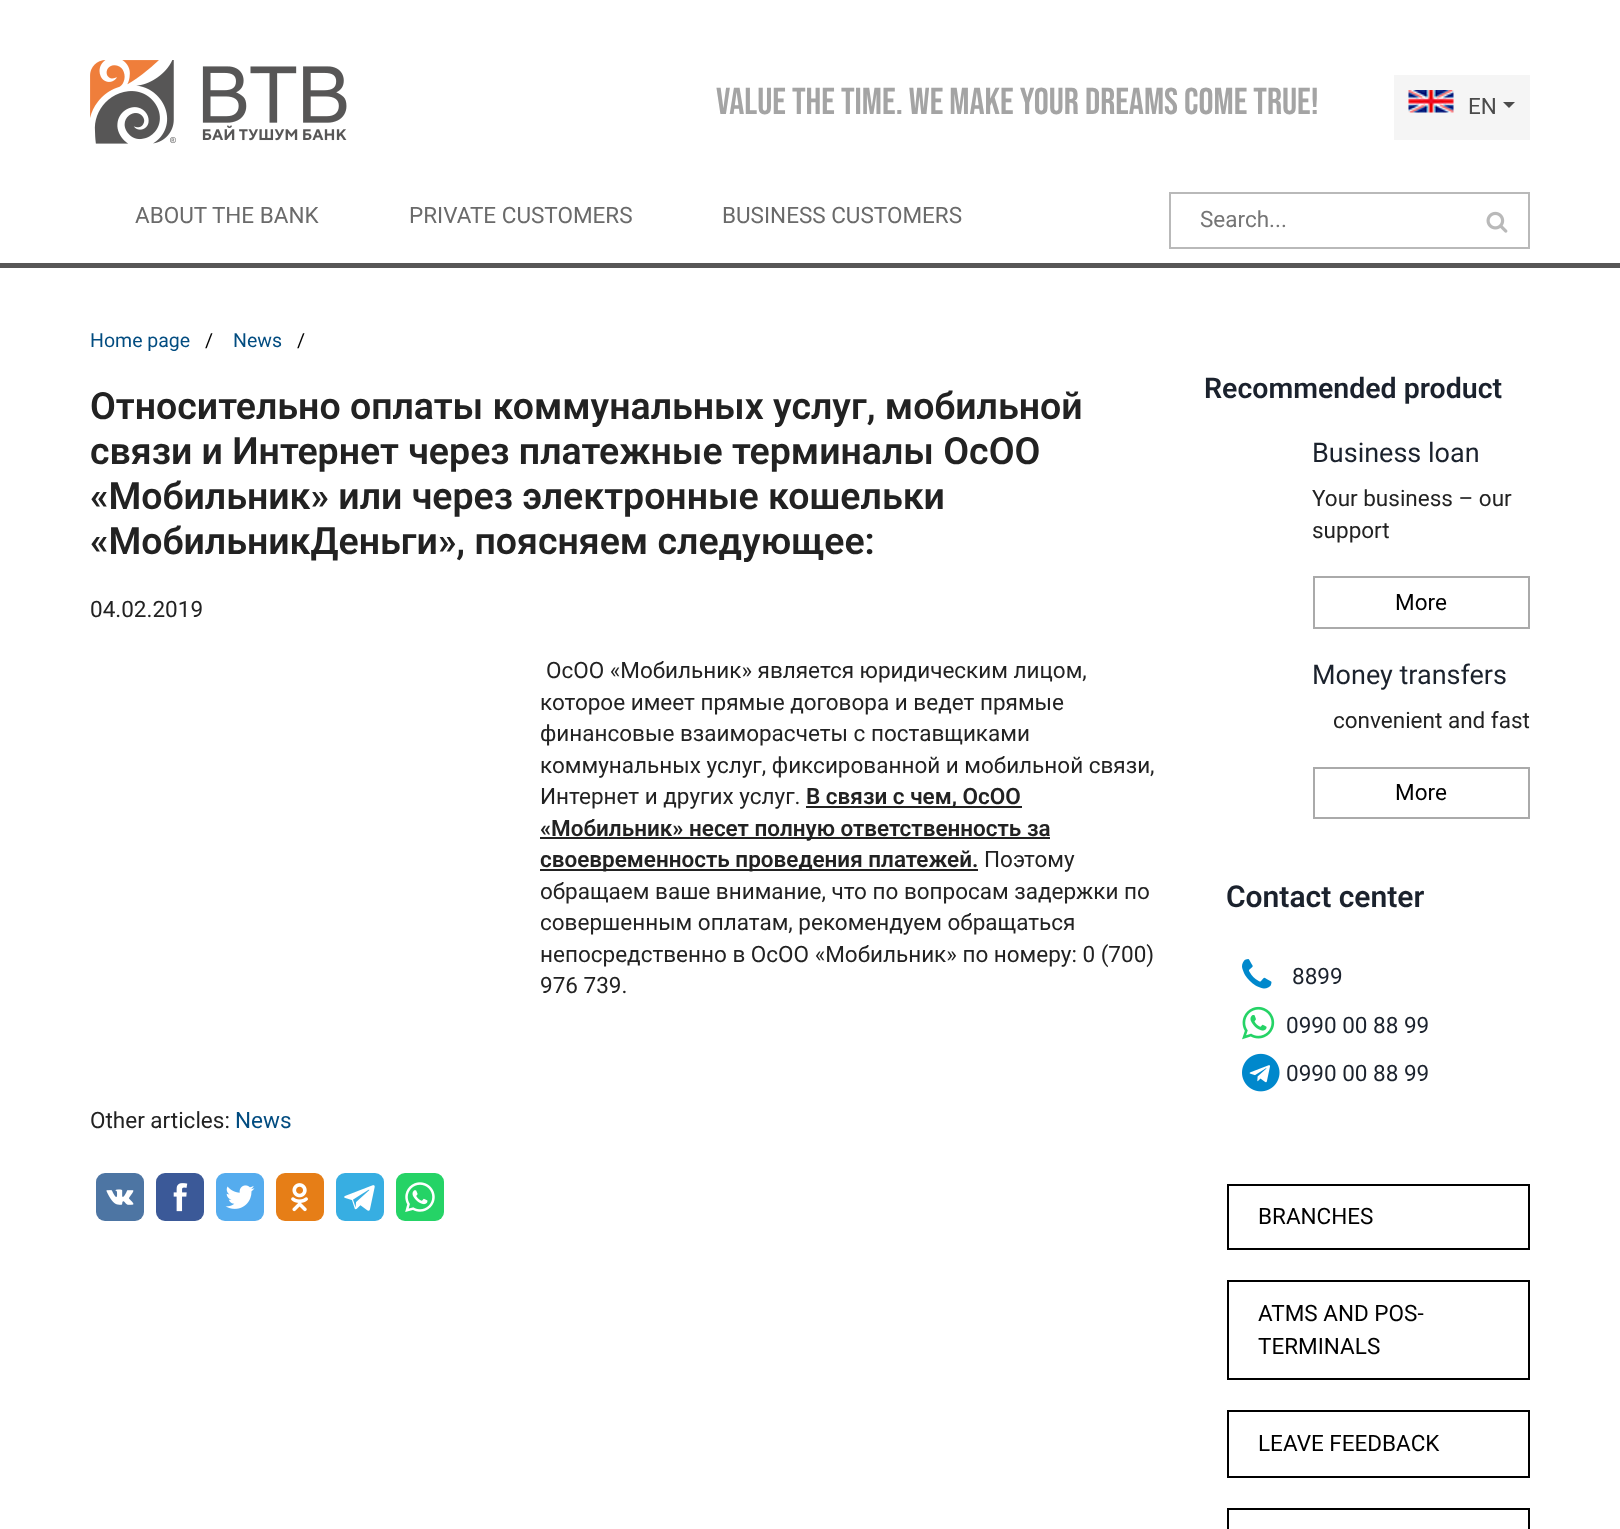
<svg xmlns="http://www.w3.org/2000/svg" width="1620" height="1529">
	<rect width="100%" height="100%" fill="#FFFFFF" />
	<rect x="0" y="263" width="1620" height="5" fill="#575656" />
	<image x="90" y="60" width="257" height="84" href="assets/img1.png" />
	<text x="716" y="114" font-family="Bebas Neue" font-size="37.5" fill="#A4A4A4">Value the time. We make your dreams come true!</text>
	<rect x="1394" y="75" width="136" height="65" fill="#F5F5F5" />
	<image x="1408" y="90" width="46" height="23" href="assets/img2.png" />
	<text x="1468" y="114" font-family="Roboto" font-size="22.5" fill="#4B4B4B">EN</text>
	<path d="M1503 102H1515L1509 108Z" fill="#4B4B4B" />
	<g font-family="Roboto" font-size="22.5" fill="#6A6A6A">
		<text x="135" y="223">ABOUT THE BANK</text>
		<text x="409" y="223">PRIVATE CUSTOMERS</text>
		<text x="722" y="223">BUSINESS CUSTOMERS</text>
	</g>
	<rect x="1170" y="193" width="359" height="55" fill="none" stroke="#B9B9B9" stroke-width="2" />
	<text x="1200" y="227" font-family="Roboto" font-size="22.5" fill="#757575">Search...</text>
	<image x="1486" y="211" width="22" height="22" href="assets/img3.png" />
	<text x="90" y="347" font-family="Roboto" font-size="19.5" fill="#024C80">Home page</text>
	<text x="205" y="347" font-family="Roboto" font-size="19.5" fill="#000000">/</text>
	<text x="233" y="347" font-family="Roboto" font-size="19.5" fill="#024C80">News</text>
	<text x="297" y="347" font-family="Roboto" font-size="19.5" fill="#000000">/</text>
	<g font-family="Roboto" font-size="37.5" font-weight="600" fill="#222222">
		<text x="90" y="419">Относительно оплаты коммунальных услуг, мобильной</text>
		<text x="90" y="464">связи и Интернет через платежные терминалы ОсОО</text>
		<text x="90" y="509">«Мобильник» или через электронные кошельки</text>
		<text x="90" y="554">«МобильникДеньги», поясняем следующее:</text>
	</g>
	<g font-family="Roboto" font-size="22.5" fill="#222222">
		<text x="90" y="617">04.02.2019</text>
		<text x="546" y="678">ОсОО «Мобильник» является юридическим лицом,</text>
		<text x="540" y="710">которое имеет прямые договора и ведет прямые</text>
		<text x="540" y="741">финансовые взаиморасчеты с поставщиками</text>
		<text x="540" y="773">коммунальных услуг, фиксированной и мобильной связи,</text>
		<text x="540" y="804">Интернет и других услуг.</text>
	</g>
	<rect x="806" y="806" width="216" height="2" fill="#222222" />
	<text x="806" y="804" font-family="Roboto" font-size="22.5" font-weight="600" fill="#222222">В связи с чем, ОсОО</text>
	<rect x="540" y="837" width="510" height="2" fill="#222222" />
	<text x="540" y="836" font-family="Roboto" font-size="22.5" font-weight="600" fill="#222222">«Мобильник» несет полную ответственность за</text>
	<rect x="540" y="869" width="438" height="2" fill="#222222" />
	<text x="540" y="867" font-family="Roboto" font-size="22.5" font-weight="600" fill="#222222">своевременность проведения платежей.</text>
	<g font-family="Roboto" font-size="22.5" fill="#222222">
		<text x="984" y="867">Поэтому</text>
		<text x="540" y="899">обращаем ваше внимание, что по вопросам задержки по</text>
		<text x="540" y="930">совершенным оплатам, рекомендуем обращаться</text>
		<text x="540" y="962">непосредственно в ОсОО «Мобильник» по номеру: 0 (700)</text>
		<text x="540" y="993">976 739.</text>
		<text x="90" y="1128">Other articles:</text>
	</g>
	<text x="235" y="1128" font-family="Roboto" font-size="22.5" fill="#024C80">News</text>
	<rect x="96" y="1173" width="48" height="48" rx="9" fill="#4D75A3" />
	<image x="106" y="1189" width="28" height="16" href="assets/img4.png" />
	<rect x="156" y="1173" width="48" height="48" rx="9" fill="#3B5998" />
	<image x="173" y="1183" width="15" height="29" href="assets/img5.png" />
	<rect x="216" y="1173" width="48" height="48" rx="9" fill="#55ACEE" />
	<image x="225" y="1185" width="30" height="24" href="assets/img6.png" />
	<rect x="276" y="1173" width="48" height="48" rx="9" fill="#E67E17" />
	<image x="291" y="1183" width="17" height="29" href="assets/img7.png" />
	<rect x="336" y="1173" width="48" height="48" rx="9" fill="#37AEE2" />
	<image x="344" y="1185" width="31" height="26" href="assets/img8.png" />
	<rect x="396" y="1173" width="48" height="48" rx="9" fill="#25D366" />
	<image x="405" y="1182" width="30" height="30" href="assets/img9.png" />
	<text x="1204" y="398" font-family="Roboto" font-size="28.5" font-weight="600" fill="#1B222D">Recommended product</text>
	<text x="1312" y="462" font-family="Roboto" font-size="27" fill="#1B222D">Business loan</text>
	<g font-family="Roboto" font-size="22.5" fill="#222222">
		<text x="1312" y="506">Your business – our</text>
		<text x="1312" y="538">support</text>
	</g>
	<rect x="1314" y="577" width="215" height="51" fill="none" stroke="#AAAAAA" stroke-width="2" />
	<text x="1395" y="610" font-family="Roboto" font-size="22.5" fill="#000000">More</text>
	<text x="1312" y="684" font-family="Roboto" font-size="27" fill="#1B222D">Money transfers</text>
	<text x="1333" y="728" font-family="Roboto" font-size="22.5" fill="#222222">convenient and fast</text>
	<rect x="1314" y="768" width="215" height="50" fill="none" stroke="#AAAAAA" stroke-width="2" />
	<text x="1395" y="800" font-family="Roboto" font-size="22.5" fill="#000000">More</text>
	<text x="1226" y="907" font-family="Roboto" font-size="30" font-weight="600" fill="#1B222D">Contact center</text>
	<image x="1242" y="959" width="30" height="30" href="assets/img10.png" />
	<text x="1292" y="984" font-family="Roboto" font-size="22.5" fill="#1B222D">8899</text>
	<image x="1242" y="1006" width="33" height="34" href="assets/img11.png" />
	<text x="1286" y="1033" font-family="Roboto" font-size="22.5" fill="#1B222D">0990 00 88 99</text>
	<image x="1242" y="1053" width="38" height="39" href="assets/img12.png" />
	<text x="1286" y="1081" font-family="Roboto" font-size="22.5" fill="#1B222D">0990 00 88 99</text>
	<rect x="1228" y="1185" width="301" height="64" fill="none" stroke="#000000" stroke-width="2" />
	<text x="1258" y="1224" font-family="Roboto" font-size="22.5" fill="#000000">BRANCHES</text>
	<rect x="1228" y="1281" width="301" height="98" fill="none" stroke="#000000" stroke-width="2" />
	<g font-family="Roboto" font-size="22.5" fill="#000000">
		<text x="1258" y="1321">ATMS AND POS-</text>
		<text x="1258" y="1354">TERMINALS</text>
	</g>
	<rect x="1228" y="1411" width="301" height="66" fill="none" stroke="#000000" stroke-width="2" />
	<text x="1258" y="1451" font-family="Roboto" font-size="22.5" fill="#000000">LEAVE FEEDBACK</text>
	<rect x="1228" y="1509" width="301" height="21" fill="none" stroke="#000000" stroke-width="2" />
</svg>
